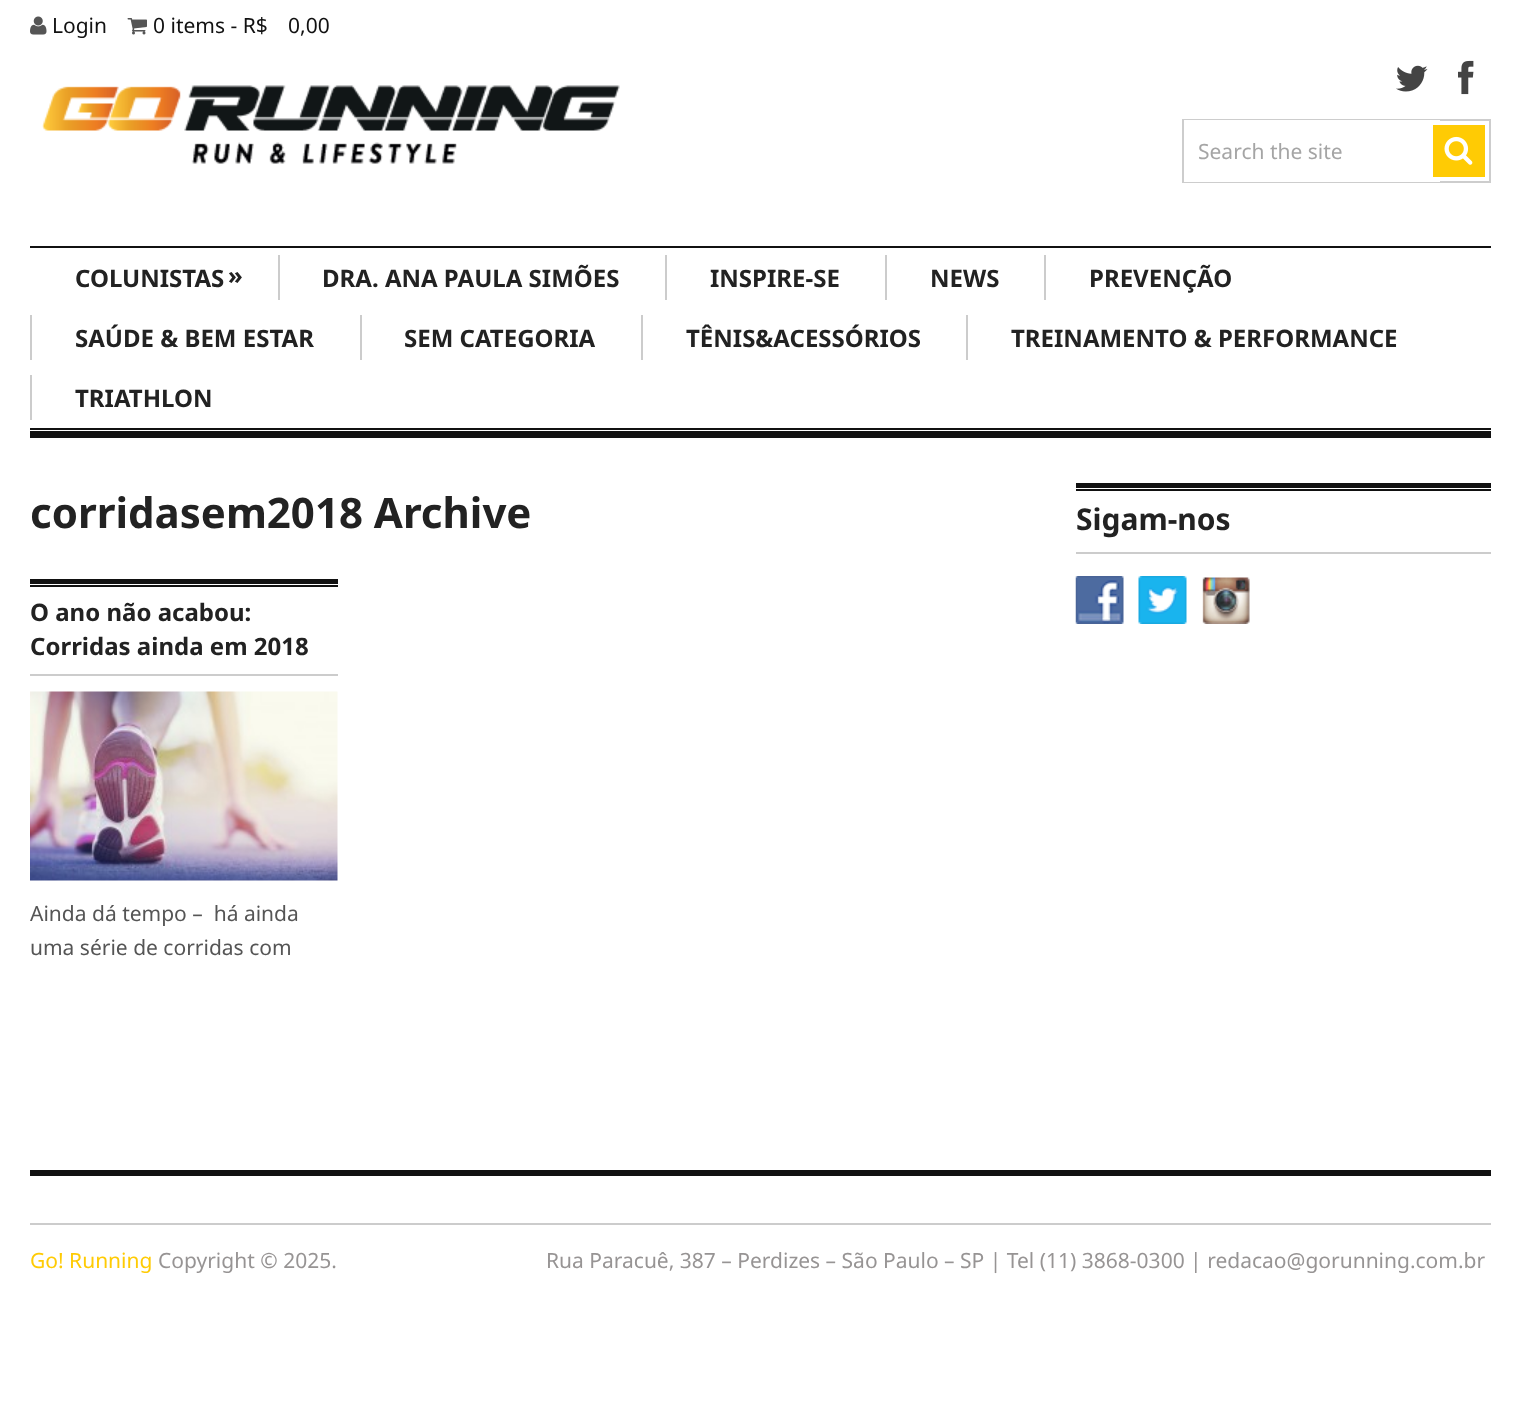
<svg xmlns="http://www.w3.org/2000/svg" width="1521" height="1414">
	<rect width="100%" height="100%" fill="#FFFFFF" />
	<image x="30" y="16" width="17" height="19" href="assets/img1.png" />
	<text x="52" y="33" font-family="Noto Sans" font-size="21" fill="#111111">Login</text>
	<image x="127" y="18" width="20" height="17" href="assets/img2.png" />
	<g font-family="Noto Sans" font-size="21" fill="#111111">
		<text x="153" y="33">0 items - R$</text>
		<text x="288" y="33">0,00</text>
	</g>
	<image x="42" y="85" width="578" height="79" href="assets/img3.png" />
	<image x="1396" y="65" width="32" height="27" href="assets/img4.png" />
	<image x="1458" y="60" width="16" height="35" href="assets/img5.png" />
	<rect x="1183" y="120" width="307" height="62" fill="none" stroke="#CDCDCD" stroke-width="2" />
	<rect x="1184" y="120" width="256" height="62" fill="#FFFFFF" />
	<text x="1198" y="159" font-family="Noto Sans" font-size="21" fill="#A5A5A5">Search the site</text>
	<rect x="1433" y="125" width="52" height="52" fill="#FFCB04" />
	<image x="1444" y="136" width="29" height="29" href="assets/img6.png" />
	<rect x="30" y="431" width="1461" height="7" fill="#111111" />
	<rect x="30" y="246" width="1461" height="2" fill="#111111" />
	<rect x="30" y="428" width="1461" height="2" fill="#111111" />
	<g font-family="Noto Sans" font-size="24" font-weight="700" fill="#222222">
		<text x="75" y="287">COLUNISTAS</text>
		<text x="228" y="284">»</text>
	</g>
	<rect x="278" y="255" width="2" height="45" fill="#CCCCCC" />
	<text x="322" y="287" font-family="Noto Sans" font-size="24" font-weight="700" fill="#222222">DRA. ANA PAULA SIMÕES</text>
	<rect x="665" y="255" width="2" height="45" fill="#CCCCCC" />
	<text x="710" y="287" font-family="Noto Sans" font-size="24" font-weight="700" fill="#222222">INSPIRE-SE</text>
	<rect x="885" y="255" width="2" height="45" fill="#CCCCCC" />
	<text x="930" y="287" font-family="Noto Sans" font-size="24" font-weight="700" fill="#222222">NEWS</text>
	<rect x="1044" y="255" width="2" height="45" fill="#CCCCCC" />
	<text x="1089" y="287" font-family="Noto Sans" font-size="24" font-weight="700" fill="#222222">PREVENÇÃO</text>
	<rect x="30" y="315" width="2" height="45" fill="#CCCCCC" />
	<text x="75" y="347" font-family="Noto Sans" font-size="24" font-weight="700" fill="#222222">SAÚDE &amp; BEM ESTAR</text>
	<rect x="360" y="315" width="2" height="45" fill="#CCCCCC" />
	<text x="404" y="347" font-family="Noto Sans" font-size="24" font-weight="700" fill="#222222">SEM CATEGORIA</text>
	<rect x="641" y="315" width="2" height="45" fill="#CCCCCC" />
	<text x="686" y="347" font-family="Noto Sans" font-size="24" font-weight="700" fill="#222222">TÊNIS&amp;ACESSÓRIOS</text>
	<rect x="966" y="315" width="2" height="45" fill="#CCCCCC" />
	<text x="1011" y="347" font-family="Noto Sans" font-size="24" font-weight="700" fill="#222222">TREINAMENTO &amp; PERFORMANCE</text>
	<rect x="30" y="375" width="2" height="45" fill="#CCCCCC" />
	<text x="75" y="407" font-family="Noto Sans" font-size="24" font-weight="700" fill="#222222">TRIATHLON</text>
	<text x="30" y="528" font-family="Noto Sans" font-size="42" font-weight="700" fill="#222222">corridasem2018 Archive</text>
	<rect x="30" y="579" width="308" height="5" fill="#111111" />
	<rect x="30" y="585" width="308" height="2" fill="#111111" />
	<rect x="30" y="674" width="308" height="2" fill="#CCCCCC" />
	<g font-family="Noto Sans" font-size="24" font-weight="700" fill="#222222">
		<text x="30" y="621">O ano não acabou:</text>
		<text x="30" y="655">Corridas ainda em 2018</text>
	</g>
	<image x="30" y="691" width="308" height="190" href="assets/img7.png" />
	<g font-family="Noto Sans" font-size="21" fill="#555555">
		<text x="30" y="921" xml:space="preserve">Ainda dá tempo –  há ainda</text>
		<text x="30" y="955">uma série de corridas com</text>
	</g>
	<rect x="1076" y="483" width="415" height="5" fill="#111111" />
	<rect x="1076" y="489" width="415" height="2" fill="#111111" />
	<rect x="1076" y="552" width="415" height="2" fill="#CCCCCC" />
	<text x="1076" y="530" font-family="Noto Sans" font-size="30" font-weight="700" fill="#222222">Sigam-nos</text>
	<image x="1075" y="576" width="49" height="48" href="assets/img8.png" />
	<image x="1138" y="576" width="49" height="48" href="assets/img9.png" />
	<image x="1202" y="577" width="48" height="47" href="assets/img10.png" />
	<rect x="30" y="1170" width="1461" height="6" fill="#111111" />
	<rect x="30" y="1223" width="1461" height="2" fill="#CCCCCC" />
	<text x="30" y="1268" font-family="Noto Sans" font-size="21" fill="#FFCB04">Go! Running</text>
	<g font-family="Noto Sans" font-size="21" fill="#979494">
		<text x="158" y="1268">Copyright © 2025.</text>
		<text x="546" y="1268">Rua Paracuê, 387 – Perdizes – São Paulo – SP | Tel (11) 3868-0300 | redacao@gorunning.com.br</text>
	</g>
</svg>
